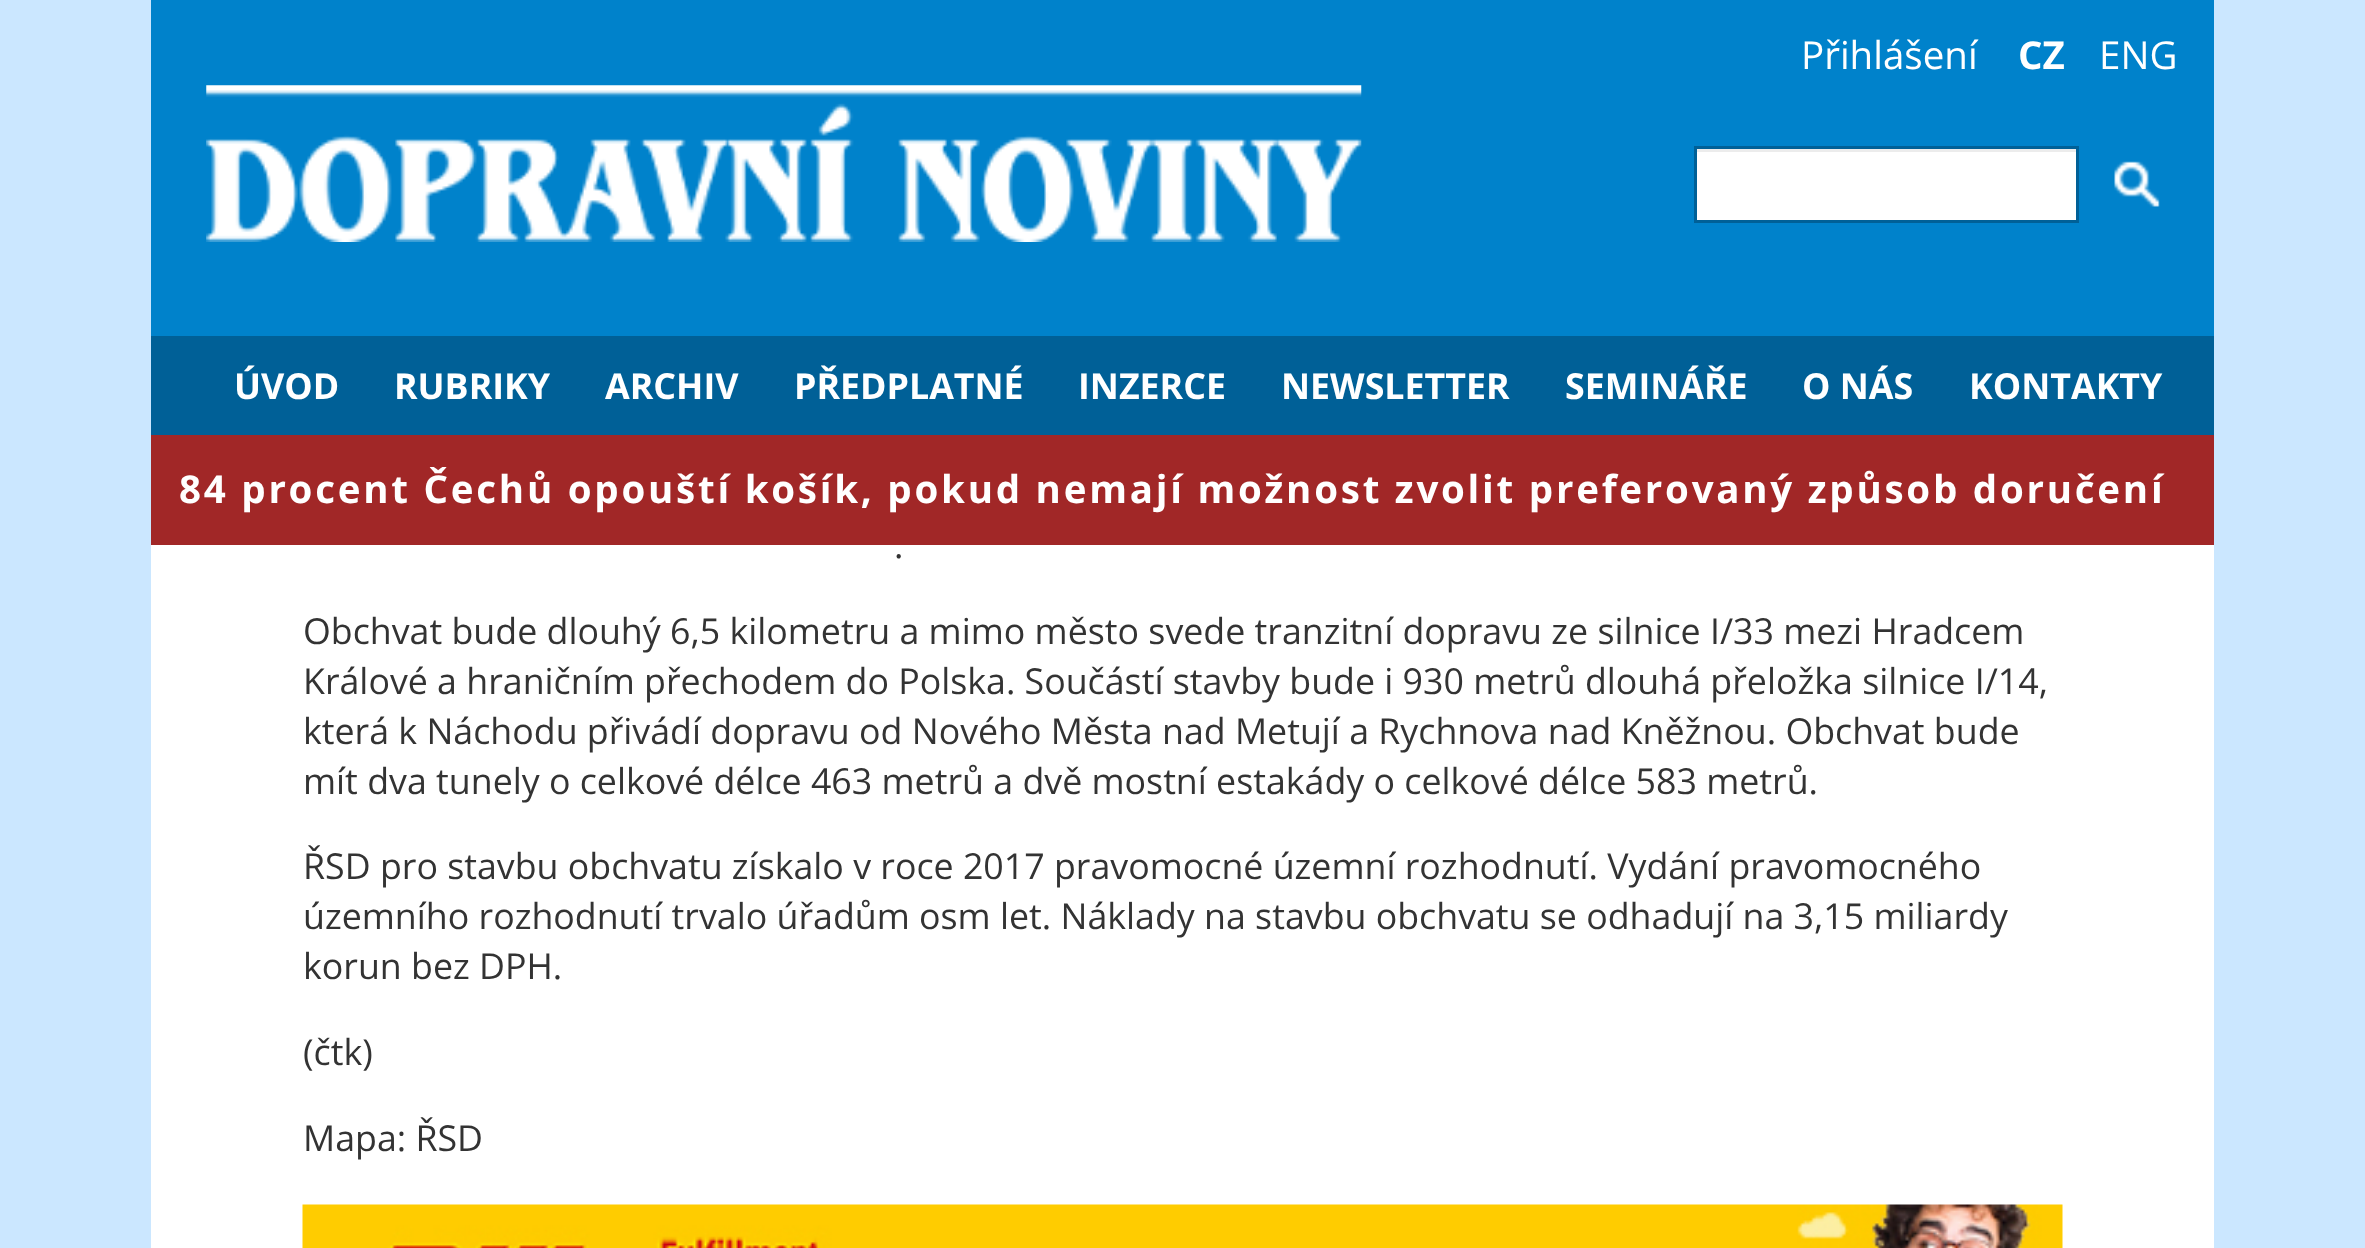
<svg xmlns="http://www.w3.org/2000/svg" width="2365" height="1248">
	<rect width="100%" height="100%" fill="#CBE7FF" />
	<rect x="151" y="0" width="2063" height="336" fill="#0082CB" />
	<text x="1801" y="69" font-family="Open Sans" font-size="38.5" fill="#FFFFFF">Přihlášení</text>
	<text x="2018" y="69" font-family="Open Sans" font-size="38.5" font-weight="700" fill="#FFFFFF">CZ</text>
	<text x="2099" y="69" font-family="Open Sans" font-size="38.5" fill="#FFFFFF">ENG</text>
	<image x="206" y="85" width="1156" height="157" href="assets/img1.png" />
	<rect x="1697" y="152" width="379" height="68" fill="#FFFFFF" />
	<rect x="1697" y="149" width="379" height="3" fill="#ECECEC" />
	<rect x="1695.5" y="147.5" width="382" height="74" fill="none" stroke="#006097" stroke-width="3" />
	<image x="2114" y="161" width="46" height="46" href="assets/img2.png" />
	<rect x="151" y="336" width="2063" height="99" fill="#006097" />
	<g font-family="Open Sans" font-size="35.75" font-weight="700" fill="#FFFFFF">
		<text x="234" y="399">ÚVOD</text>
		<text x="394" y="399">RUBRIKY</text>
		<text x="605" y="399">ARCHIV</text>
		<text x="794" y="399">PŘEDPLATNÉ</text>
		<text x="1078" y="399">INZERCE</text>
		<text x="1281" y="399">NEWSLETTER</text>
		<text x="1565" y="399">SEMINÁŘE</text>
		<text x="1802" y="399">O NÁS</text>
		<text x="1969" y="399">KONTAKTY</text>
	</g>
	<rect x="151" y="435" width="2063" height="813" fill="#FFFFFF" />
	<rect x="151" y="435" width="2063" height="110" fill="#900101" fill-opacity="0.85" />
	<text x="179" y="503" font-family="Open Sans" font-size="38.5" font-weight="700" letter-spacing="2.75" fill="#FFFFFF">84 procent Čechů opouští košík, pokud nemají možnost zvolit preferovaný způsob doručení</text>
	<g font-family="Open Sans" font-size="35.75" fill="#333333">
		<text x="894" y="558">.</text>
		<text x="303" y="644">Obchvat bude dlouhý 6,5 kilometru a mimo město svede tranzitní dopravu ze silnice I/33 mezi Hradcem</text>
		<text x="303" y="694">Králové a hraničním přechodem do Polska. Součástí stavby bude i 930 metrů dlouhá přeložka silnice I/14,</text>
		<text x="303" y="744">která k Náchodu přivádí dopravu od Nového Města nad Metují a Rychnova nad Kněžnou. Obchvat bude</text>
		<text x="303" y="794">mít dva tunely o celkové délce 463 metrů a dvě mostní estakády o celkové délce 583 metrů.</text>
		<text x="303" y="879">ŘSD pro stavbu obchvatu získalo v roce 2017 pravomocné územní rozhodnutí. Vydání pravomocného</text>
		<text x="303" y="929">územního rozhodnutí trvalo úřadům osm let. Náklady na stavbu obchvatu se odhadují na 3,15 miliardy</text>
		<text x="303" y="979">korun bez DPH.</text>
		<text x="303" y="1065">(čtk)</text>
		<text x="303" y="1151">Mapa: ŘSD</text>
	</g>
	<image x="302" y="1204" width="1761" height="44" href="assets/img3.png" />
</svg>
